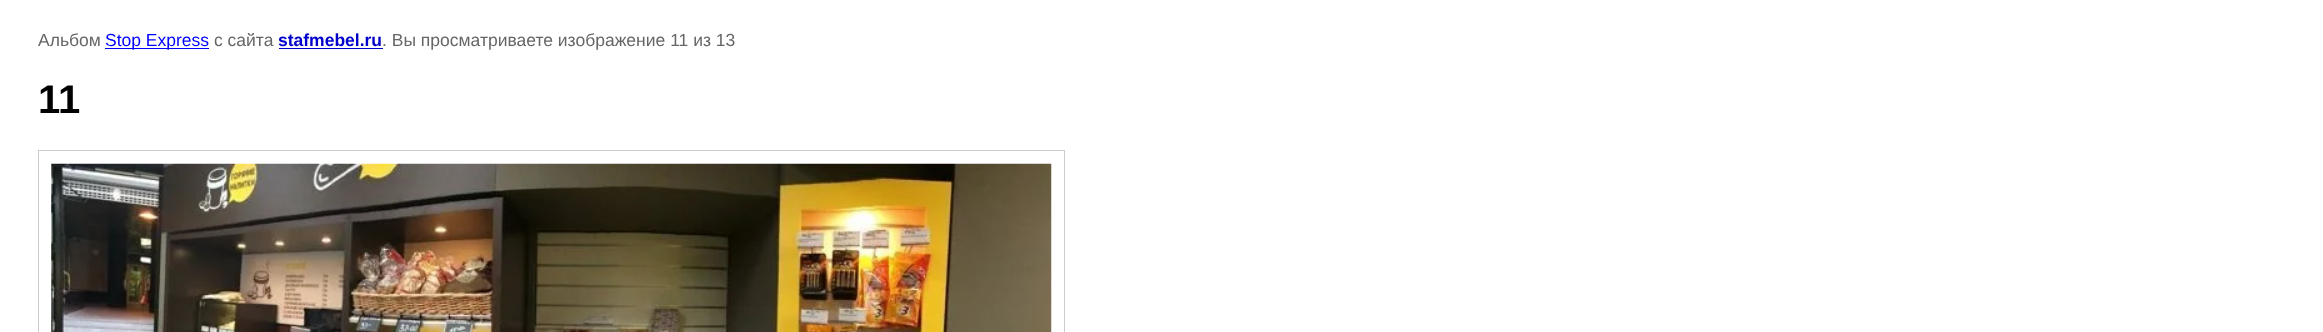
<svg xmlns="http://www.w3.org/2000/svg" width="2323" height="332">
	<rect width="100%" height="100%" fill="#FFFFFF" />
	<text x="38" y="46" font-family="Liberation Sans" font-size="17.5" fill="#666666">Альбом</text>
	<rect x="105" y="48" width="104" height="1" fill="#0000FF" />
	<text x="105" y="46" font-family="Liberation Sans" font-size="17.5" fill="#0000FF">Stop Express</text>
	<text x="214" y="46" font-family="Liberation Sans" font-size="17.5" fill="#666666">с сайта</text>
	<text x="278" y="46" font-family="Liberation Sans" font-size="17.5" font-weight="700" fill="#0000CC">stafmebel.ru</text>
	<rect x="279" y="48" width="104" height="1" fill="#0000CC" />
	<text x="382" y="46" font-family="Liberation Sans" font-size="17.5" fill="#666666">. Вы просматриваете изображение 11 из 13</text>
	<text x="38" y="113" font-family="Liberation Sans" font-size="40" font-weight="700" fill="#000000">11</text>
	<rect x="38.5" y="150.5" width="1026" height="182" fill="none" stroke="#CCCCCC" />
	<image x="51" y="163" width="1001" height="169" href="assets/img1.png" />
</svg>
